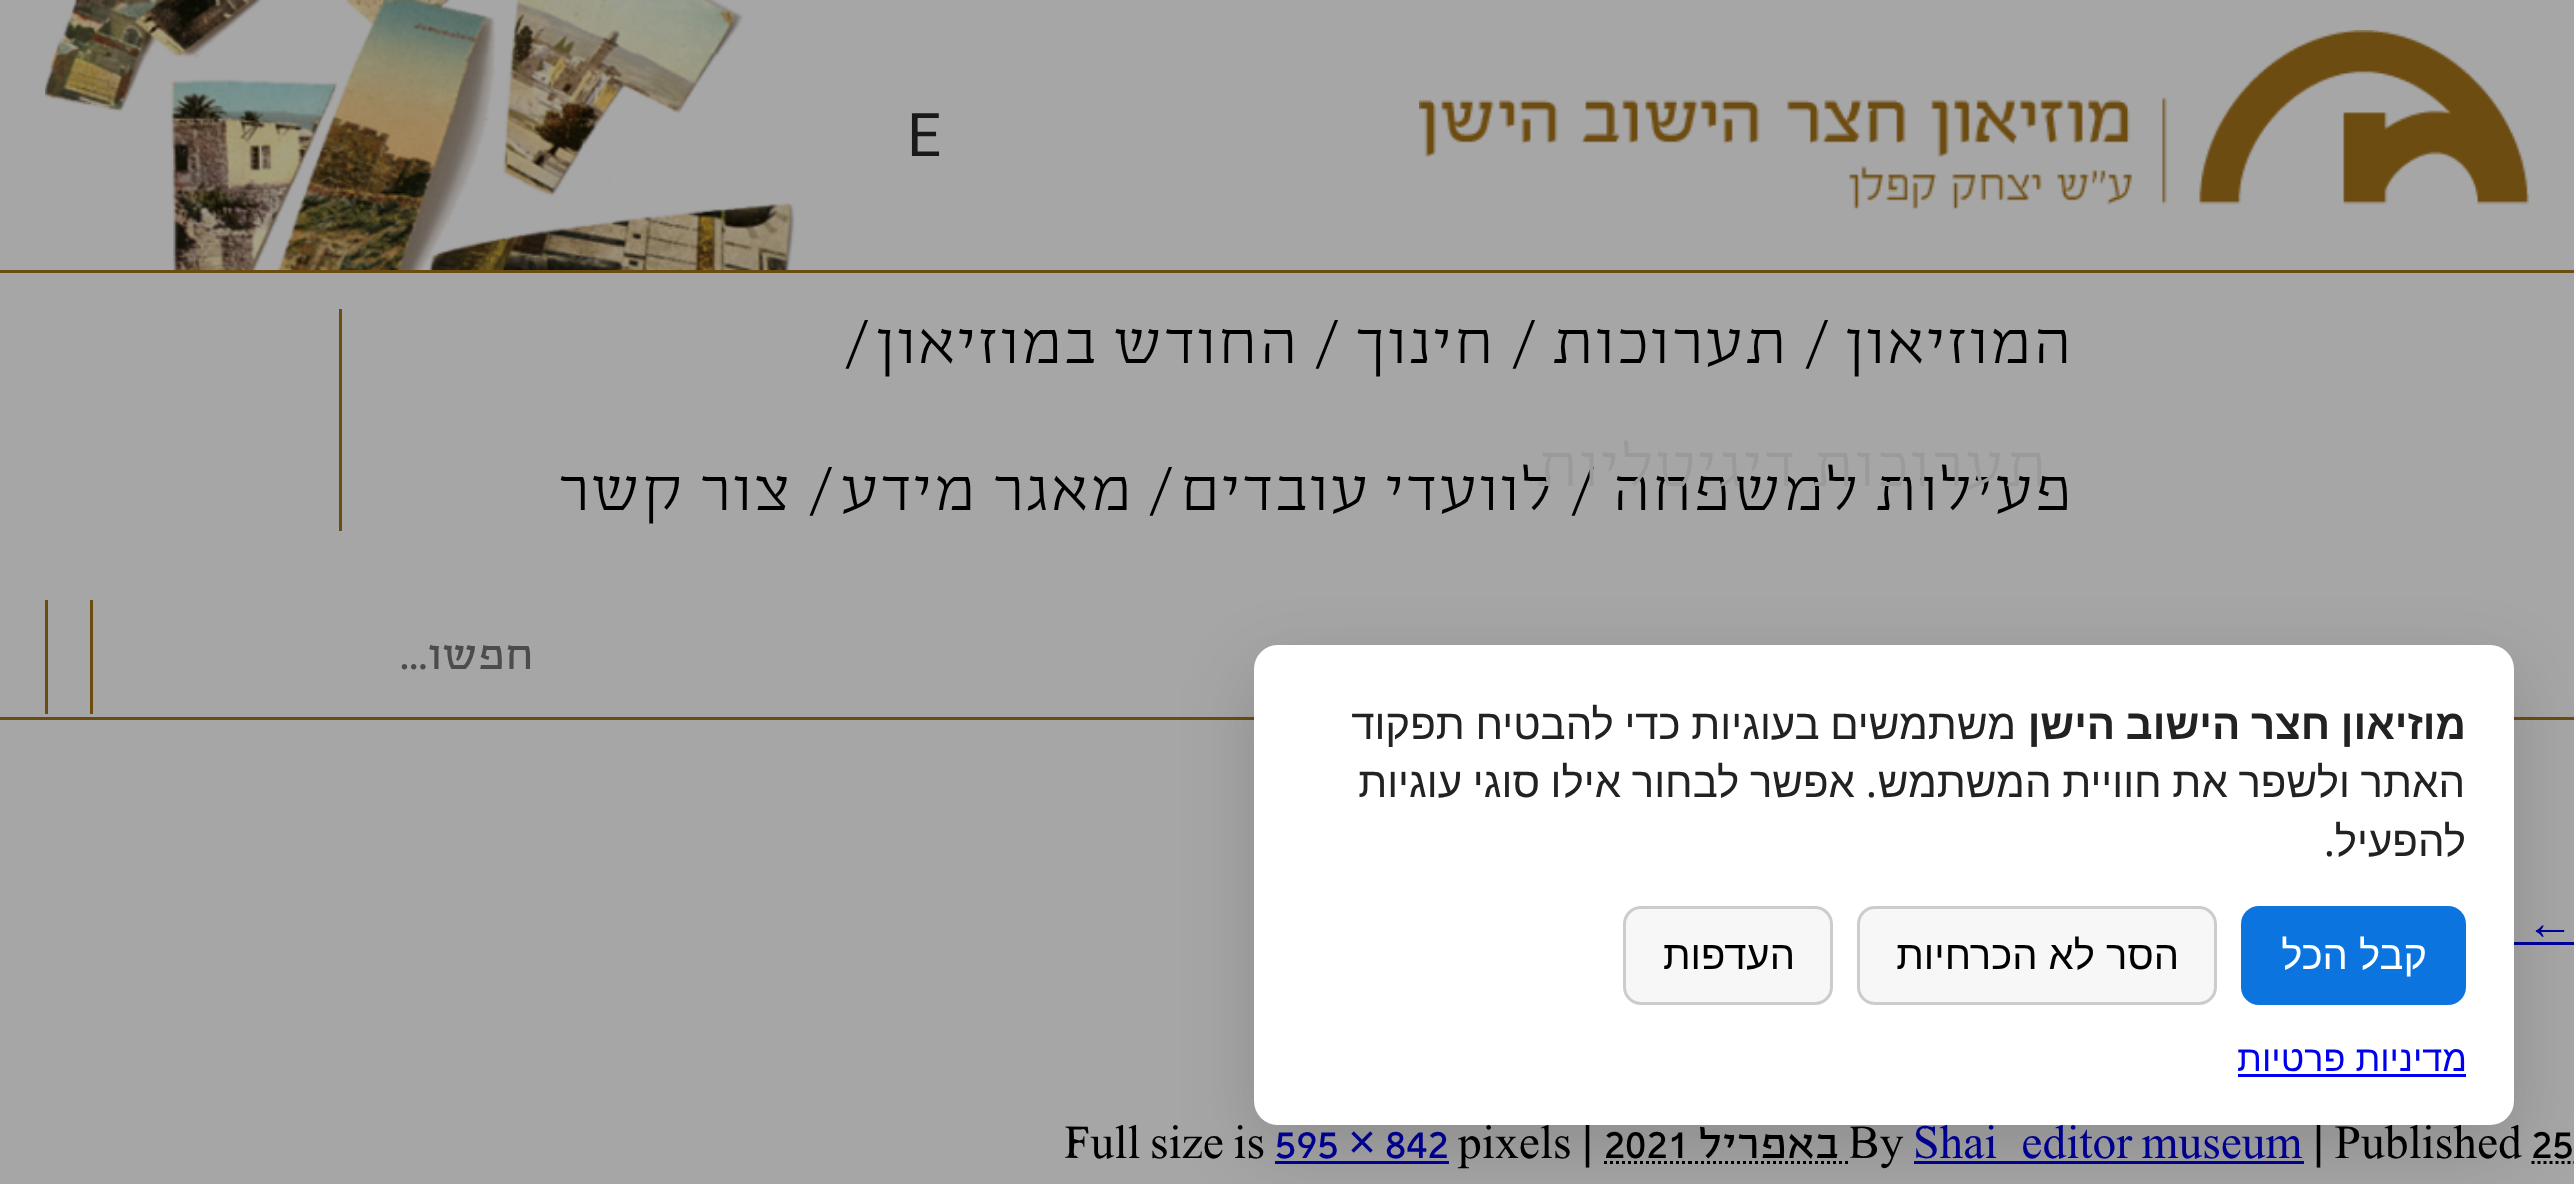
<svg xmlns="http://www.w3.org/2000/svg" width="2574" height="1184">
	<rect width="100%" height="100%" fill="#A6A6A6" />
	<image x="1419" y="30" width="1110" height="180" href="assets/img1.png" />
	<text x="907" y="156" font-family="Roboto" font-size="60" fill="#191919">E</text>
	<image x="45" y="0" width="750" height="270" href="assets/img2.png" />
	<rect x="0" y="270" width="2574" height="3" fill="#6D4C12" />
	<rect x="0" y="717" width="2574" height="3" fill="#6D4C12" />
	<text x="1788" y="363" font-family="'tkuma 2'" font-size="69" direction="rtl" fill="#000000">תערוכות</text>
	<text x="1511" y="365" font-family="'tkuma 2'" font-size="78" fill="#000000">/</text>
	<text x="2073" y="510" font-family="'tkuma 2'" font-size="69" direction="rtl" fill="#000000">פעילות למשפחה</text>
	<text x="1570" y="512" font-family="'tkuma 2'" font-size="78" fill="#000000">/</text>
	<text x="1555" y="510" font-family="'tkuma 2'" font-size="69" direction="rtl" fill="#000000">לוועדי עובדים</text>
	<text x="2048" y="486" font-family="'tkuma 2'" font-size="69" direction="rtl" fill="#9A9A9A">תערוכות דיגיטליות</text>
	<text x="1495" y="363" font-family="'tkuma 2'" font-size="69" direction="rtl" fill="#000000">חינוך</text>
	<text x="1314" y="365" font-family="'tkuma 2'" font-size="78" fill="#000000">/</text>
	<text x="1299" y="363" font-family="'tkuma 2'" font-size="69" direction="rtl" fill="#000000">החודש במוזיאון</text>
	<text x="844" y="365" font-family="'tkuma 2'" font-size="78" fill="#000000">/</text>
	<rect x="339" y="309" width="3" height="222" fill="#6D4C12" />
	<text x="2073" y="363" font-family="'tkuma 2'" font-size="69" direction="rtl" fill="#000000">המוזיאון</text>
	<g font-family="'tkuma 2'" font-size="78" fill="#000000">
		<text x="1804" y="365">/</text>
		<text x="1148" y="512">/</text>
	</g>
	<text x="1133" y="510" font-family="'tkuma 2'" font-size="69" direction="rtl" fill="#000000">מאגר מידע</text>
	<text x="808" y="512" font-family="'tkuma 2'" font-size="78" fill="#000000">/</text>
	<text x="792" y="510" font-family="'tkuma 2'" font-size="69" direction="rtl" fill="#000000">צור קשר</text>
	<text x="534" y="669" font-family="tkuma" font-size="48" direction="rtl" fill="#4C4C4C">חפשו...</text>
	<rect x="90" y="600" width="3" height="114" fill="#6D4C12" />
	<rect x="45" y="600" width="3" height="114" fill="#6D4C12" />
	<text x="2526" y="939" font-family="Liberation Sans" font-size="48" fill="#00009B">←</text>
	<rect x="2514" y="942" width="60" height="3" fill="#00009B" />
	<text x="2312" y="1158" font-family="tkuma" font-size="48" fill="#000000">| Published 25</text>
	<rect x="1914" y="1161" width="390" height="3" fill="#00009B" />
	<text x="1913" y="1158" font-family="tkuma" font-size="48" fill="#00009B">Shai_editor museum</text>
	<text x="1848" y="1158" font-family="tkuma" font-size="48" fill="#000000">By</text>
	<text x="1839" y="1158" font-family="tkuma" font-size="48" direction="rtl" fill="#000000">באפריל</text>
	<path d="M1689 1162.5H1848" fill="none" stroke="#000000" stroke-width="3" stroke-dasharray="3 3" />
	<path d="M2531.5 1162.5H2574" fill="none" stroke="#000000" stroke-width="3" stroke-dasharray="3 3" />
	<text x="1604" y="1158" font-family="tkuma" font-size="48" fill="#000000">2021</text>
	<path d="M1604 1162.5H1689" fill="none" stroke="#000000" stroke-width="3" stroke-dasharray="3 3" />
	<g font-family="tkuma" font-size="48" fill="#000000">
		<text x="1581" y="1158">|</text>
		<text x="1458" y="1158">pixels</text>
	</g>
	<text x="1385" y="1158" font-family="tkuma" font-size="48" fill="#00009B">842</text>
	<text x="1348" y="1158" font-family="Liberation Sans" font-size="48" fill="#00009B">×</text>
	<text x="1275" y="1158" font-family="tkuma" font-size="48" fill="#00009B">595</text>
	<rect x="1275" y="1161" width="174" height="3" fill="#00009B" />
	<text x="1064" y="1158" font-family="tkuma" font-size="48" fill="#000000">Full size is</text>
	<rect x="1254" y="669" width="1260" height="480" rx="24" fill="#000000" fill-opacity="0.15" filter="blur(36px)" />
	<rect x="1254" y="645" width="1260" height="480" rx="24" fill="#FFFFFF" />
	<text x="2466" y="739" word-spacing="-1" font-family="Liberation Sans" font-size="42" font-weight="700" direction="rtl" fill="#222222">מוזיאון חצר הישוב הישן</text>
	<g font-family="Liberation Sans" font-size="42" direction="rtl" fill="#222222">
		<text x="2016" y="739" word-spacing="-1">משתמשים בעוגיות כדי להבטיח תפקוד</text>
		<text x="2465" y="797" word-spacing="-1">האתר ולשפר את חוויית המשתמש</text>
	</g>
	<text x="1877" y="797" font-family="Noto Sans" font-size="42" direction="rtl" fill="#222222">.</text>
	<g font-family="Liberation Sans" font-size="42" direction="rtl" fill="#222222">
		<text x="1855" y="797" word-spacing="-1">אפשר לבחור אילו סוגי עוגיות</text>
		<text x="2466" y="856">להפעיל</text>
	</g>
	<text x="2335" y="856" font-family="Noto Sans" font-size="42" direction="rtl" fill="#222222">.</text>
	<rect x="2241" y="906" width="225" height="99" rx="18" fill="#0B74DE" />
	<text x="2427" y="969" font-family="Liberation Sans" font-size="40" direction="rtl" fill="#FFFFFF">קבל הכל</text>
	<rect x="1858.5" y="907.5" width="357" height="96" rx="16.5" fill="#F7F7F7" stroke="#CCCCCC" stroke-width="3" />
	<text x="2179" y="969" font-family="Liberation Sans" font-size="40" direction="rtl" fill="#000000">הסר לא הכרחיות</text>
	<rect x="1624.5" y="907.5" width="207" height="96" rx="16.5" fill="#F7F7F7" stroke="#CCCCCC" stroke-width="3" />
	<text x="1795" y="969" font-family="Liberation Sans" font-size="40" direction="rtl" fill="#000000">העדפות</text>
	<text x="2467" y="1071" font-family="Liberation Sans" font-size="36" direction="rtl" fill="#0000EE">מדיניות פרטיות</text>
	<rect x="2238" y="1074" width="228" height="3" fill="#0000EE" />
</svg>
